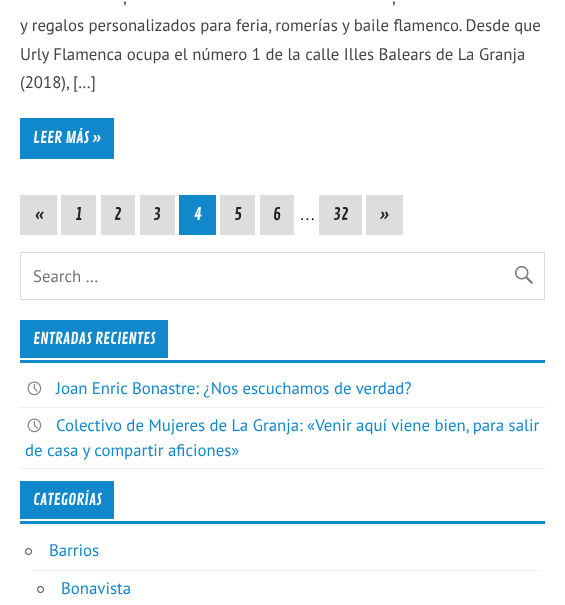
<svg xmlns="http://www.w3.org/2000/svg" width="565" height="605">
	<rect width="100%" height="100%" fill="#FFFFFF" />
	<g font-family="PT Sans" font-size="16.8" fill="#444444">
		<text x="123" y="3">,</text>
		<text x="392" y="3">,</text>
		<text x="20" y="31">y regalos personalizados para feria, romerías y baile flamenco. Desde que</text>
		<text x="20" y="60">Urly Flamenca ocupa el número 1 de la calle Illes Balears de La Granja</text>
		<text x="20" y="88">(2018), […]</text>
	</g>
	<rect x="20" y="118" width="94" height="41" fill="#1188CC" />
	<text x="33" y="143" font-family="Contrail One" font-size="16" fill="#FFFFFF">LEER MÁS »</text>
	<rect x="20" y="195" width="37" height="40" fill="#DDDDDD" />
	<text x="34" y="220" font-family="Contrail One" font-size="16.8" fill="#222222">«</text>
	<rect x="61" y="195" width="35" height="40" fill="#DDDDDD" />
	<text x="75" y="220" font-family="Contrail One" font-size="16.8" fill="#222222">1</text>
	<rect x="101" y="195" width="34" height="40" fill="#DDDDDD" />
	<text x="114" y="220" font-family="Contrail One" font-size="16.8" fill="#222222">2</text>
	<rect x="140" y="195" width="35" height="40" fill="#DDDDDD" />
	<text x="153" y="220" font-family="Contrail One" font-size="16.8" fill="#222222">3</text>
	<rect x="179" y="195" width="37" height="40" fill="#1188CC" />
	<text x="194" y="220" font-family="Contrail One" font-size="16.8" fill="#FFFFFF">4</text>
	<rect x="220" y="195" width="35" height="40" fill="#DDDDDD" />
	<text x="234" y="220" font-family="Contrail One" font-size="16.8" fill="#222222">5</text>
	<rect x="260" y="195" width="34" height="40" fill="#DDDDDD" />
	<text x="273" y="220" font-family="Contrail One" font-size="16.8" fill="#222222">6</text>
	<text x="299" y="220" font-family="Liberation Sans" font-size="16.8" fill="#111111">…</text>
	<rect x="319" y="195" width="43" height="40" fill="#DDDDDD" />
	<text x="333" y="220" font-family="Contrail One" font-size="16.8" fill="#222222">32</text>
	<rect x="366" y="195" width="37" height="40" fill="#DDDDDD" />
	<text x="380" y="220" font-family="Contrail One" font-size="16.8" fill="#222222">»</text>
	<rect x="20.5" y="252.5" width="524" height="47" fill="none" stroke="#DDDDDD" />
	<text x="33" y="282" font-family="PT Sans" font-size="16.8" fill="#757575">Search …</text>
	<image x="515" y="266" width="18" height="18" href="assets/img1.png" />
	<rect x="20" y="360" width="525" height="3" fill="#1188CC" />
	<rect x="20" y="320" width="148" height="38" fill="#1188CC" />
	<text x="33" y="344" font-family="Contrail One" font-size="16" fill="#FFFFFF">ENTRADAS RECIENTES</text>
	<rect x="20" y="407" width="525" height="1" fill="#EEEEEE" />
	<image x="27" y="381" width="15" height="15" href="assets/img2.png" />
	<text x="56" y="394" font-family="PT Sans" font-size="16.8" fill="#1188CC">Joan Enric Bonastre: ¿Nos escuchamos de verdad?</text>
	<rect x="20" y="468" width="525" height="1" fill="#EEEEEE" />
	<image x="27" y="418" width="15" height="15" href="assets/img2.png" />
	<g font-family="PT Sans" font-size="16.8" fill="#1188CC">
		<text x="56" y="431">Colectivo de Mujeres de La Granja: «Venir aquí viene bien, para salir</text>
		<text x="25" y="456">de casa y compartir aficiones»</text>
	</g>
	<rect x="20" y="521" width="525" height="3" fill="#1188CC" />
	<rect x="20" y="481" width="94" height="38" fill="#1188CC" />
	<text x="33" y="505" font-family="Contrail One" font-size="16" fill="#FFFFFF">CATEGORÍAS</text>
	<circle cx="28.5" cy="551.5" r="3" fill="none" stroke="#333333" />
	<text x="49" y="556" font-family="PT Sans" font-size="16.8" fill="#1188CC">Barrios</text>
	<rect x="32" y="570" width="508" height="1" fill="#EEEEEE" />
	<circle cx="40.5" cy="589.5" r="3" fill="none" stroke="#333333" />
	<text x="61" y="594" font-family="PT Sans" font-size="16.8" fill="#1188CC">Bonavista</text>
</svg>
